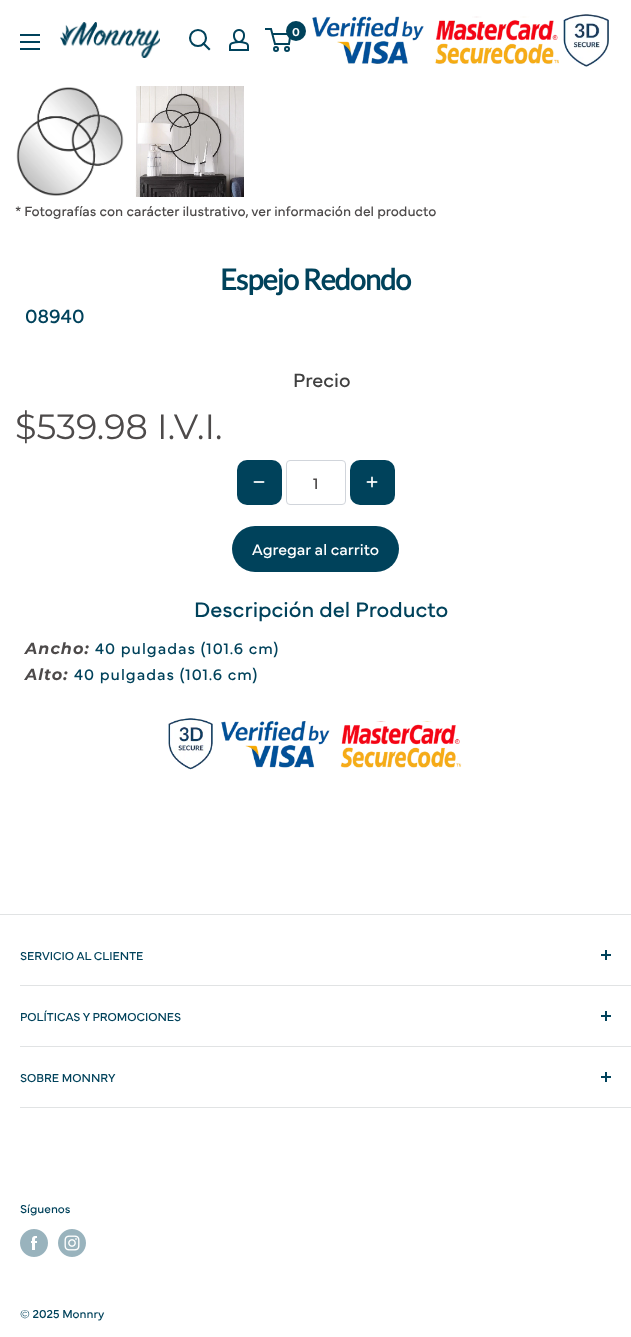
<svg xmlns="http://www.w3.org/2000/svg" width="631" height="1337">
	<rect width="100%" height="100%" fill="#FFFFFF" />
	<image x="60" y="22" width="100" height="36" href="assets/img1.png" />
	<path d="M209 49L203.5 43.5" fill="none" stroke="#00425B" stroke-width="2.1" stroke-linecap="square" />
	<circle cx="198" cy="38" r="8" fill="none" stroke="#00425B" stroke-width="2.1" />
	<image x="229" y="29" width="20" height="22" href="assets/img2.png" />
	<circle cx="276" cy="49" r="2" fill="none" stroke="#00425B" stroke-width="2" />
	<circle cx="287" cy="49" r="2" fill="none" stroke="#00425B" stroke-width="2" />
	<path d="M272.5 34H290.5L289 44H275L271 29H265" fill="none" stroke="#00425B" stroke-width="2" />
	<circle cx="296" cy="31" r="10" fill="#00425B" />
	<text x="292" y="36" font-family="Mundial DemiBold" font-size="12" font-weight="600" fill="#FFFFFF">0</text>
	<image x="312" y="14" width="297" height="53" href="assets/img3.png" />
	<image x="20" y="34" width="20" height="16" href="assets/img4.png" />
	<image x="16" y="87" width="108" height="109" href="assets/img5.png" />
	<image x="135" y="86" width="109" height="111" href="assets/img6.png" />
	<text x="15" y="216" font-family="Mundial" font-size="14" fill="#4D4A4A">* Fotografías con carácter ilustrativo, ver información del producto</text>
	<text x="220" y="290" font-family="Lato" font-size="29" font-weight="700" letter-spacing="-1" fill="#00425B">Espejo Redondo</text>
	<text x="25" y="323" font-family="Mundial" font-size="20" fill="#00425B">08940</text>
	<text x="293" y="387" font-family="Mundial" font-size="20" fill="#404040">Precio</text>
	<text x="15" y="439" font-family="Montserrat" font-size="35" font-weight="100" fill="#4D4A4A">$539.98 I.V.I.</text>
	<rect x="237" y="460" width="45" height="45" rx="10" fill="#00425B" />
	<image x="253" y="481" width="12" height="2" href="assets/img7.png" />
	<rect x="286.5" y="460.5" width="59" height="44" rx="3.5" fill="none" stroke="#D1D5DB" />
	<text x="313" y="489" font-family="Mundial" font-size="16" fill="#4D4A4A">1</text>
	<rect x="350" y="460" width="45" height="45" rx="10" fill="#00425B" />
	<image x="366" y="476" width="12" height="12" href="assets/img8.png" />
	<rect x="232" y="526" width="167" height="46" rx="23" fill="#00425B" />
	<text x="252" y="555" font-family="Mundial" font-size="16" fill="#FFFFFF">Agregar al carrito</text>
	<text x="194" y="617" font-family="Mundial" font-size="22" fill="#00425B">Descripción del Producto</text>
	<text x="25" y="654" font-family="Montserrat" font-size="16" font-weight="700" font-style="italic" letter-spacing="1" fill="#4D4A4A">Ancho:</text>
	<text x="95" y="654" font-family="Mundial" font-size="16" letter-spacing="1" fill="#00425B">40 pulgadas (101.6 cm)</text>
	<text x="25" y="680" font-family="Montserrat" font-size="16" font-weight="700" font-style="italic" letter-spacing="1" fill="#4D4A4A">Alto:</text>
	<text x="74" y="680" font-family="Mundial" font-size="16" letter-spacing="1" fill="#00425B">40 pulgadas (101.6 cm)</text>
	<image x="168" y="718" width="294" height="52" href="assets/img9.png" />
	<rect x="0" y="914" width="631" height="1" fill="#E1E3E4" />
	<rect x="20" y="985" width="611" height="1" fill="#E1E3E4" />
	<text x="20" y="960" font-family="Mundial" font-size="12" fill="#00425B">SERVICIO AL CLIENTE</text>
	<rect x="605" y="950" width="2" height="10" fill="#00425B" />
	<rect x="601" y="954" width="10" height="2" fill="#00425B" />
	<rect x="20" y="1046" width="611" height="1" fill="#E1E3E4" />
	<text x="20" y="1021" font-family="Mundial" font-size="12" fill="#00425B">POLÍTICAS Y PROMOCIONES</text>
	<rect x="605" y="1011" width="2" height="10" fill="#00425B" />
	<rect x="601" y="1015" width="10" height="2" fill="#00425B" />
	<rect x="20" y="1107" width="611" height="1" fill="#E1E3E4" />
	<text x="20" y="1082" font-family="Mundial" font-size="12" fill="#00425B">SOBRE MONNRY</text>
	<rect x="605" y="1072" width="2" height="10" fill="#00425B" />
	<rect x="601" y="1076" width="10" height="2" fill="#00425B" />
	<text x="20" y="1213" font-family="Mundial" font-size="12" fill="#00425B">Síguenos</text>
	<image x="20" y="1229" width="28" height="28" href="assets/img10.png" />
	<image x="58" y="1229" width="28" height="28" href="assets/img11.png" />
	<text x="20" y="1318" font-family="Mundial" font-size="12" fill="#00425B">© 2025 Monnry</text>
</svg>
